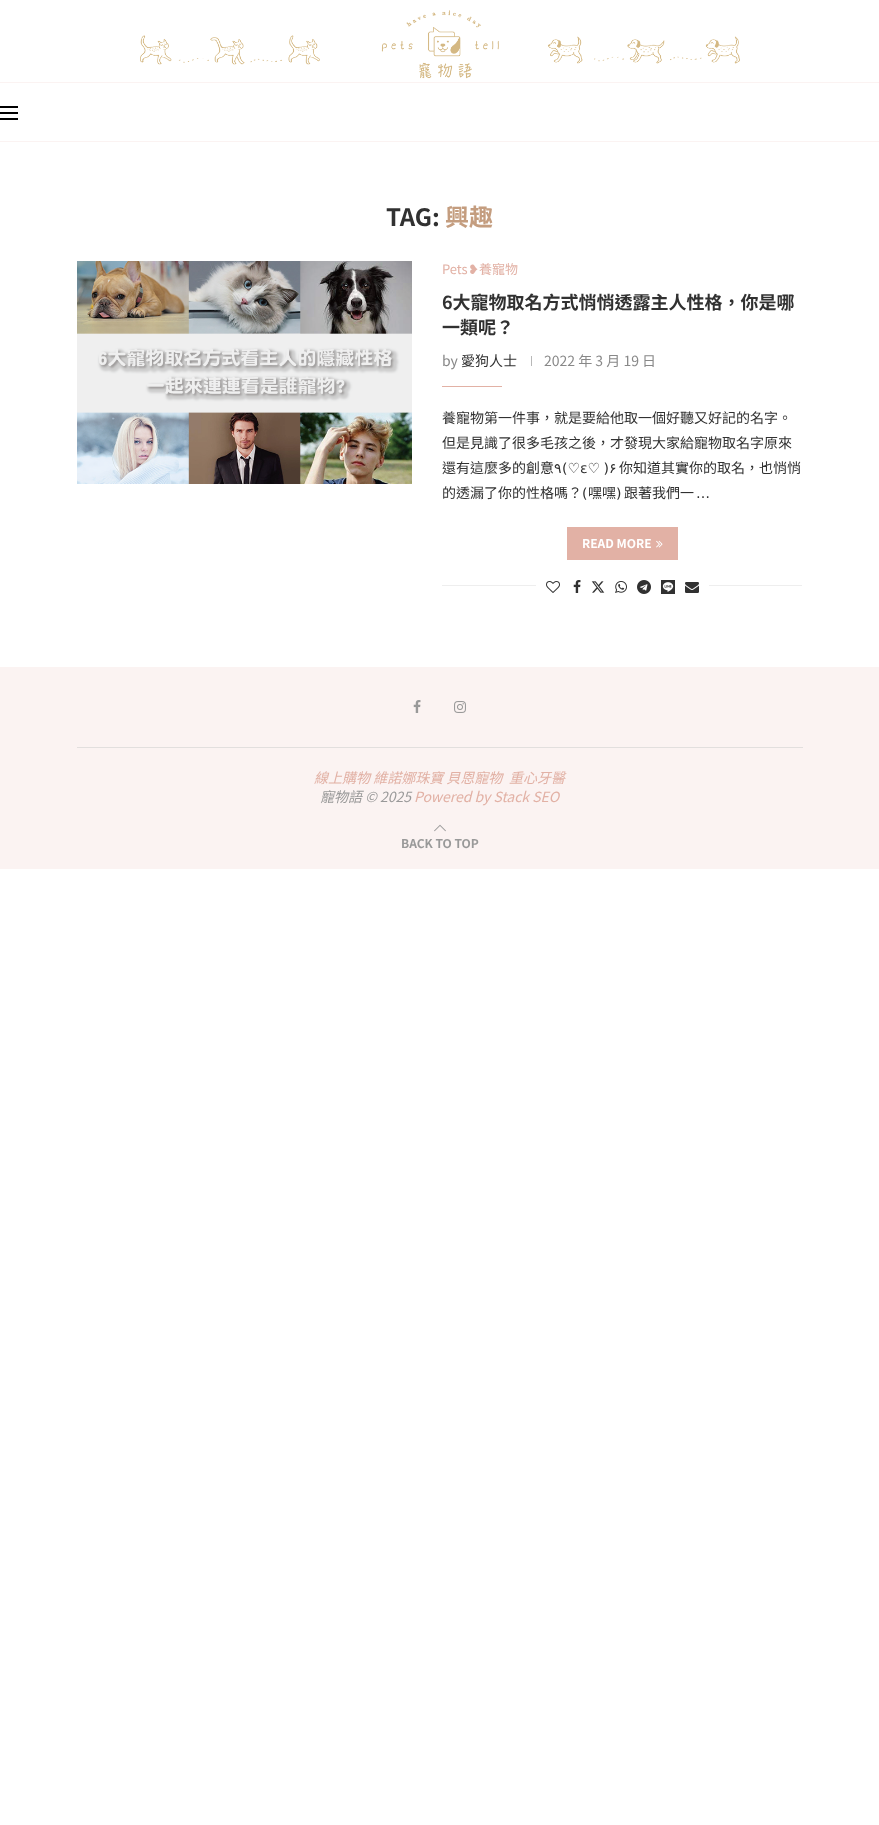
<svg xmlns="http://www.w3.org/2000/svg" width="879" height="1825">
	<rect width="100%" height="100%" fill="#FFFFFF" />
	<image x="140" y="10" width="600" height="69" href="assets/img1.png" />
	<rect x="0" y="82" width="879" height="1" fill="#FBF3F2" />
	<rect x="0" y="141" width="879" height="1" fill="#FBF3F2" />
	<rect x="0" y="106" width="18" height="2" fill="#000000" />
	<rect x="0" y="112" width="18" height="2" fill="#000000" />
	<rect x="0" y="118" width="18" height="2" fill="#000000" />
	<text x="386" y="226" font-family="Noto Sans TC" font-size="24" font-weight="700" fill="#313131">TAG:</text>
	<text x="445" y="226" font-family="Noto Sans TC" font-size="24" font-weight="700" fill="#C49D7F">興趣</text>
	<image x="77" y="261" width="335" height="223" href="assets/img2.png" />
	<text x="442" y="274" font-family="Noto Sans TC" font-size="13" fill="#E2B1A5">Pets</text>
	<text x="468" y="274" font-family="DejaVu Sans" font-size="13" fill="#E2B1A5">❥</text>
	<text x="479" y="274" font-family="Noto Sans TC" font-size="13" fill="#E2B1A5">養寵物</text>
	<g font-family="Noto Sans TC" font-size="18" font-weight="700" fill="#313131">
		<text x="442" y="309">6大寵物取名方式悄悄透露主人性格，你是哪</text>
		<text x="442" y="334">一類呢？</text>
	</g>
	<text x="442" y="366" font-family="Noto Sans TC" font-size="14" fill="#888888">by</text>
	<text x="461" y="366" font-family="Noto Sans TC" font-size="14" fill="#313131">愛狗人士</text>
	<rect x="531" y="356" width="1" height="10" fill="#B8B8B8" />
	<text x="544" y="366" font-family="Noto Sans TC" font-size="14" fill="#888888">2022 年 3 月 19 日</text>
	<rect x="442" y="386" width="60" height="1" fill="#E2B1A5" />
	<g font-family="Noto Sans TC" font-size="14" fill="#313131">
		<text x="442" y="423">養寵物第一件事，就是要給他取一個好聽又好記的名字。</text>
		<text x="442" y="448">但是見識了很多毛孩之後，才發現大家給寵物取名字原來</text>
		<text x="442" y="473">還有這麼多的創意</text>
	</g>
	<g font-family="DejaVu Sans" font-size="14" fill="#313131">
		<text x="554" y="473">٩</text>
		<text x="562" y="473" word-spacing="-1">(♡ε♡ )۶</text>
	</g>
	<g font-family="Noto Sans TC" font-size="14" fill="#313131">
		<text x="619" y="473">你知道其實你的取名，也悄悄</text>
		<text x="442" y="498">的透漏了你的性格嗎？</text>
	</g>
	<text x="582" y="498" font-family="DejaVu Sans" font-size="14" fill="#313131">(</text>
	<text x="588" y="498" font-family="Noto Sans TC" font-size="14" fill="#313131">嘿嘿</text>
	<text x="616" y="498" font-family="DejaVu Sans" font-size="14" fill="#313131">)</text>
	<text x="624" y="498" font-family="Noto Sans TC" font-size="14" fill="#313131">跟著我們一</text>
	<text x="696" y="498" font-family="DejaVu Sans" font-size="14" fill="#313131">…</text>
	<rect x="567" y="527" width="111" height="33" fill="#E2B1A5" />
	<text x="582" y="548" font-family="Noto Sans TC" font-size="12" font-weight="700" fill="#FFFFFF">READ MORE</text>
	<image x="656" y="540" width="7" height="8" href="assets/img3.png" />
	<rect x="442" y="585" width="360" height="1" fill="#EEEEEE" />
	<rect x="536" y="585" width="173" height="1" fill="#FFFFFF" />
	<image x="546" y="581" width="14" height="12" href="assets/img4.png" />
	<image x="573" y="580" width="8" height="13" href="assets/img5.png" />
	<image x="591" y="581" width="14" height="12" href="assets/img6.png" />
	<image x="615" y="581" width="12" height="12" href="assets/img7.png" />
	<image x="637" y="580" width="14" height="14" href="assets/img8.png" />
	<image x="661" y="580" width="14" height="14" href="assets/img9.png" />
	<image x="685" y="582" width="14" height="11" href="assets/img10.png" />
	<rect x="0" y="667" width="879" height="202" fill="#FBF3F2" />
	<rect x="77" y="747" width="726" height="1" fill="#E2DFDE" />
	<image x="413" y="700" width="8" height="13" href="assets/img11.png" />
	<image x="454" y="701" width="12" height="12" href="assets/img12.png" />
	<g font-family="Noto Sans TC" font-size="14" font-style="italic" fill="#E2B1A5">
		<text x="314" y="783">線上購物 維諾娜珠寶 貝恩寵物</text>
		<text x="509" y="783">重心牙醫</text>
	</g>
	<text x="320" y="802" font-family="Noto Sans TC" font-size="14" font-style="italic" fill="#999999">寵物語 © 2025</text>
	<text x="414" y="802" font-family="Noto Sans TC" font-size="14" font-style="italic" fill="#E2B1A5">Powered by Stack SEO</text>
	<image x="434" y="824" width="12" height="8" href="assets/img13.png" />
	<text x="401" y="848" font-family="Noto Sans TC" font-size="12" font-weight="700" fill="#999999">BACK TO TOP</text>
</svg>
